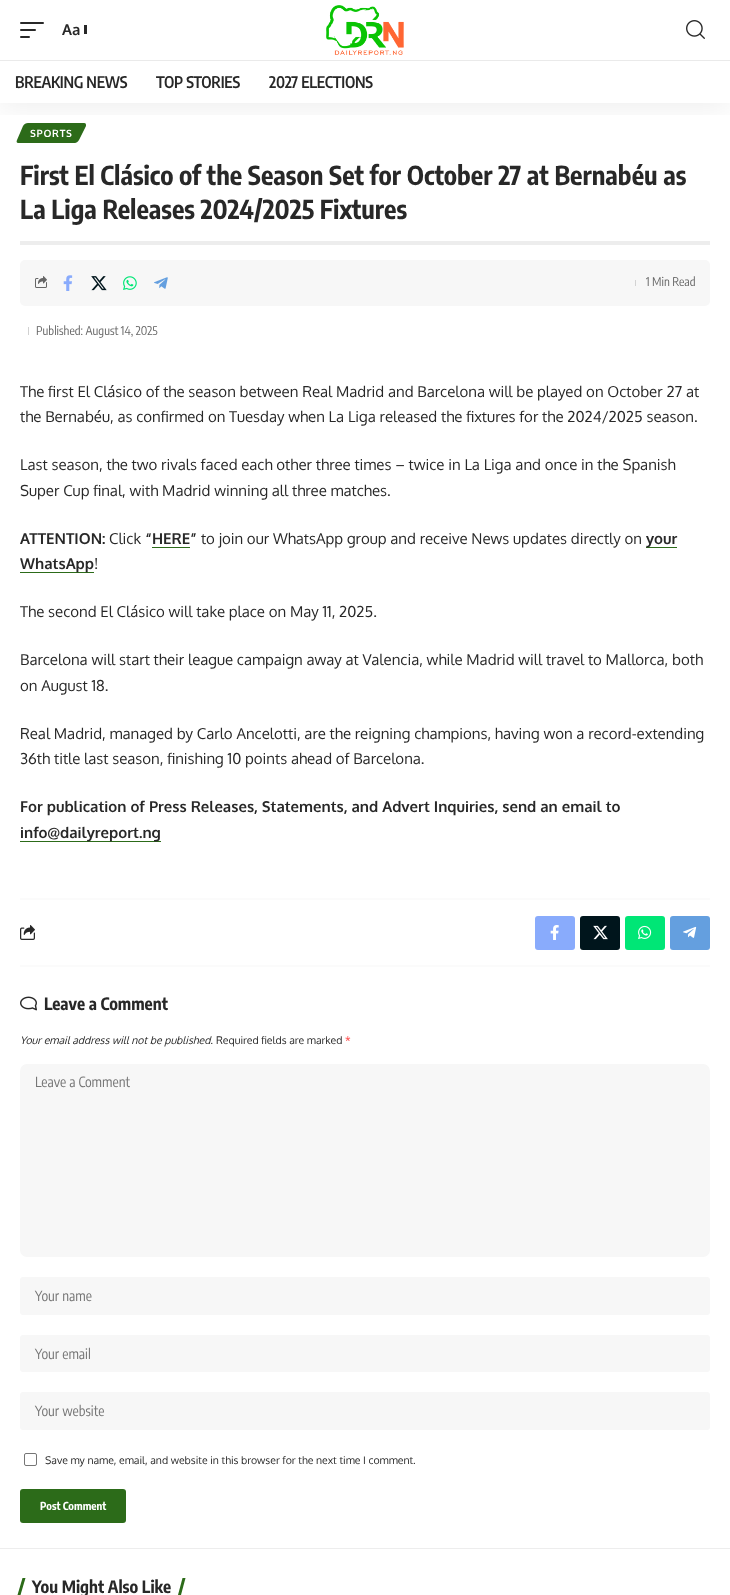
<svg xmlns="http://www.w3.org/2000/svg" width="730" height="1595">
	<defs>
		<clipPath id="clip1"><rect x="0" y="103" width="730" height="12" /></clipPath>
	</defs>
	<rect width="100%" height="100%" fill="#FFFFFF" />
	<path d="M28 123H84C86 123 86 124 86 126L79 140C78 142 76 143 75 143H18C17 143 16 142 17 140L23 126C24 124 26 123 28 123Z" fill="#2C6B19" />
	<g clip-path="url(#clip1)">
		<rect x="0" y="4" width="730" height="103" fill="#000000" fill-opacity="0.07" filter="blur(15px)" />
	</g>
	<rect x="20" y="22" width="24" height="2" rx="1" fill="#282828" />
	<rect x="20" y="29" width="16" height="2" rx="1" fill="#282828" />
	<rect x="20" y="36" width="10" height="2" rx="1" fill="#282828" />
	<text x="62" y="35" font-family="Oxygen" font-size="15" font-weight="700" fill="#282828">Aa</text>
	<rect x="84" y="25" width="3" height="9" fill="#282828" />
	<image x="326" y="5" width="78" height="50" href="assets/img1.png" />
	<image x="686" y="20" width="19" height="19" href="assets/img2.png" />
	<rect x="0" y="60" width="730" height="1" fill="#EAEAEA" />
	<g font-family="Encode Sans Condensed" font-size="16" font-weight="600" letter-spacing="-0.25" fill="#282828">
		<text x="15" y="88">BREAKING NEWS</text>
		<text x="156" y="88">TOP STORIES</text>
		<text x="269" y="88">2027 ELECTIONS</text>
	</g>
	<text x="30" y="137" font-family="Oxygen" font-size="10" font-weight="700" letter-spacing="0.75" fill="#FFFFFF">SPORTS</text>
	<g font-family="Encode Sans Condensed" font-size="26" font-weight="700" fill="#282828">
		<text x="20" y="185">First El Clásico of the Season Set for October 27 at Bernabéu as</text>
		<text x="20" y="219">La Liga Releases 2024/2025 Fixtures</text>
	</g>
	<rect x="20" y="241" width="690" height="4" fill="#EDEDED" />
	<rect x="20" y="260" width="690" height="46" rx="5" fill="#F7F7F7" />
	<image x="35" y="276" width="12" height="12" href="assets/img3.png" />
	<image x="63" y="275" width="10" height="16" href="assets/img4.png" />
	<image x="91" y="276" width="16" height="15" href="assets/img5.png" />
	<image x="123" y="276" width="14" height="14" href="assets/img6.png" />
	<image x="154" y="277" width="14" height="12" href="assets/img7.png" />
	<rect x="635" y="280" width="1" height="6" fill="#D3D3D3" />
	<text x="646" y="286" font-family="Encode Sans Condensed" font-size="12" fill="#666666">1 Min Read</text>
	<rect x="28" y="327" width="1" height="8" fill="#D1D1D1" />
	<text x="36" y="335" font-family="Encode Sans Condensed" font-size="12" fill="#666666">Published: August 14, 2025</text>
	<g font-family="Oxygen" font-size="15" fill="#282828">
		<text x="20" y="397">The first El Clásico of the season between Real Madrid and Barcelona will be played on October 27 at</text>
		<text x="20" y="422">the Bernabéu, as confirmed on Tuesday when La Liga released the fixtures for the 2024/2025 season.</text>
		<text x="20" y="470">Last season, the two rivals faced each other three times – twice in La Liga and once in the Spanish</text>
		<text x="20" y="496">Super Cup final, with Madrid winning all three matches.</text>
	</g>
	<text x="20" y="544" font-family="Oxygen" font-size="15" font-weight="700" fill="#282828">ATTENTION:</text>
	<text x="109" y="544" font-family="Oxygen" font-size="15" fill="#282828">Click</text>
	<text x="145" y="544" font-family="Oxygen" font-size="15" font-weight="700" fill="#282828">“HERE”</text>
	<rect x="152" y="547" width="38" height="1" fill="#2C6B19" />
	<text x="201" y="544" font-family="Oxygen" font-size="15" fill="#282828">to join our WhatsApp group and receive News updates directly on</text>
	<rect x="646" y="547" width="31" height="1" fill="#2C6B19" />
	<text x="646" y="544" font-family="Oxygen" font-size="15" font-weight="700" fill="#282828">your</text>
	<rect x="20" y="572" width="74" height="1" fill="#2C6B19" />
	<text x="20" y="569" font-family="Oxygen" font-size="15" font-weight="700" fill="#282828">WhatsApp</text>
	<g font-family="Oxygen" font-size="15" fill="#282828">
		<text x="94" y="569">!</text>
		<text x="20" y="617">The second El Clásico will take place on May 11, 2025.</text>
		<text x="20" y="665">Barcelona will start their league campaign away at Valencia, while Madrid will travel to Mallorca, both</text>
		<text x="20" y="691">on August 18.</text>
		<text x="20" y="739">Real Madrid, managed by Carlo Ancelotti, are the reigning champions, having won a record-extending</text>
		<text x="20" y="764">36th title last season, finishing 10 points ahead of Barcelona.</text>
	</g>
	<text x="20" y="812" font-family="Oxygen" font-size="15" font-weight="700" fill="#282828">For publication of Press Releases, Statements, and Advert Inquiries, send an email to</text>
	<rect x="20" y="841" width="141" height="1" fill="#2C6B19" />
	<text x="20" y="838" font-family="Oxygen" font-size="15" font-weight="700" fill="#282828">info@dailyreport.ng</text>
	<rect x="20" y="898" width="690" height="2" fill="#FBFBFB" />
	<image x="20" y="925" width="15" height="15" href="assets/img8.png" />
	<rect x="535" y="916" width="40" height="34" rx="3" fill="#89ABFC" />
	<image x="550" y="925" width="9" height="15" href="assets/img9.png" />
	<rect x="580" y="916" width="40" height="34" rx="3" fill="#00151C" />
	<image x="593" y="925" width="15" height="15" href="assets/img10.png" />
	<rect x="625" y="916" width="40" height="34" rx="3" fill="#00E676" />
	<image x="638" y="925" width="14" height="14" href="assets/img11.png" />
	<rect x="670" y="916" width="40" height="34" rx="3" fill="#649FDF" />
	<image x="683" y="926" width="14" height="12" href="assets/img12.png" />
	<rect x="20" y="965" width="690" height="2" fill="#FBFBFB" />
	<image x="20" y="996" width="17" height="15" href="assets/img13.png" />
	<text x="44" y="1010" font-family="Encode Sans Condensed" font-size="17" font-weight="700" fill="#282828">Leave a Comment</text>
	<text x="20" y="1044" font-family="Oxygen" font-size="10.5" font-style="italic" fill="#282828">Your email address will not be published.</text>
	<text x="216" y="1044" font-family="Oxygen" font-size="10.5" fill="#282828">Required fields are marked</text>
	<text x="345" y="1044" font-family="Oxygen" font-size="10.5" fill="#FF4545">*</text>
	<rect x="20" y="1064" width="690" height="193" rx="7" fill="#F7F7F7" />
	<text x="35" y="1087" font-family="Encode Sans Condensed" font-size="14" fill="#757575">Leave a Comment</text>
	<rect x="20" y="1277" width="690" height="38" rx="3" fill="#F7F7F7" />
	<text x="35" y="1301" font-family="Encode Sans Condensed" font-size="14" fill="#757575">Your name</text>
	<rect x="20" y="1335" width="690" height="37" rx="3" fill="#F7F7F7" />
	<text x="35" y="1359" font-family="Encode Sans Condensed" font-size="14" fill="#757575">Your email</text>
	<rect x="20" y="1392" width="690" height="38" rx="3" fill="#F7F7F7" />
	<text x="35" y="1416" font-family="Encode Sans Condensed" font-size="14" fill="#757575">Your website</text>
	<rect x="24.5" y="1453.5" width="12" height="12" rx="1.5" fill="none" stroke="#767676" />
	<text x="45" y="1464" font-family="Oxygen" font-size="10.5" fill="#282828">Save my name, email, and website in this browser for the next time I comment.</text>
	<rect x="20" y="1489" width="106" height="34" rx="3" fill="#2C6B19" />
	<text x="40" y="1510" font-family="Encode Sans Condensed" font-size="11" font-weight="700" fill="#FFFFFF">Post Comment</text>
	<rect x="0" y="1548" width="730" height="1" fill="#EDEDED" />
	<path d="M182.5 1578H185.5L181 1595H178Z" fill="#2C6B19" />
	<path d="M22.5 1578H25.5L20.5 1595H17.5Z" fill="#2C6B19" />
	<text x="32" y="1593" font-family="Encode Sans Condensed" font-size="17" font-weight="700" fill="#282828">You Might Also Like</text>
</svg>
